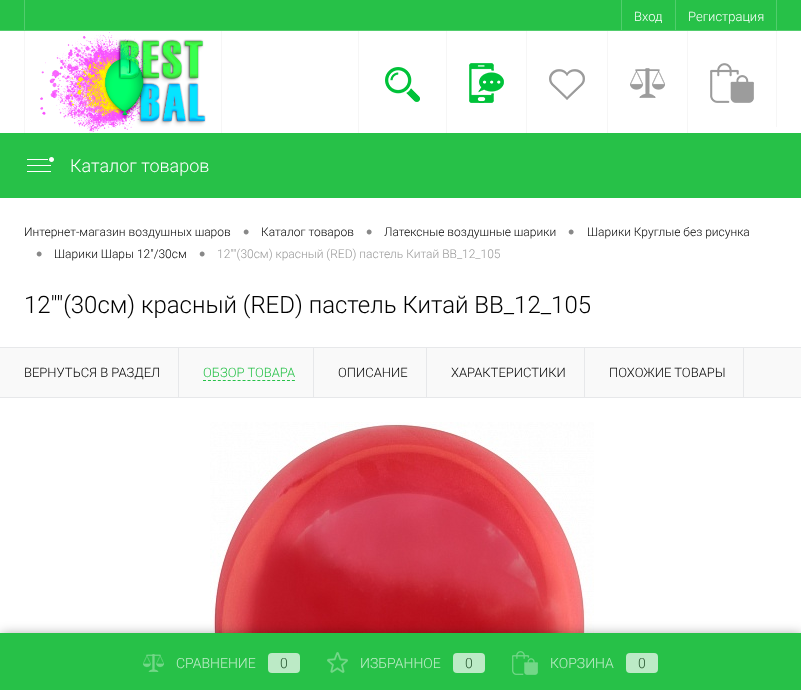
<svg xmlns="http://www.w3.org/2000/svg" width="801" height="690">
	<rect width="100%" height="100%" fill="#FFFFFF" />
	<rect x="0" y="0" width="801" height="30" fill="#27C148" />
	<rect x="0" y="30" width="801" height="1" fill="#52CD6D" />
	<rect x="24" y="0" width="1" height="30" fill="#52CD6D" />
	<rect x="621" y="0" width="1" height="30" fill="#52CD6D" />
	<rect x="675" y="0" width="1" height="30" fill="#52CD6D" />
	<text x="634" y="21" font-family="Roboto" font-size="13" font-weight="300" fill="#FFFFFF">Вход</text>
	<rect x="776" y="0" width="1" height="30" fill="#52CD6D" />
	<text x="688" y="21" font-family="Roboto" font-size="13" font-weight="300" fill="#FFFFFF">Регистрация</text>
	<rect x="221" y="31" width="1" height="102" fill="#F6F6F6" />
	<rect x="24" y="31" width="1" height="102" fill="#F6F6F6" />
	<image x="40" y="32" width="166" height="101" href="assets/img1.png" />
	<rect x="776" y="31" width="1" height="96" fill="#F6F6F6" />
	<rect x="358" y="31" width="1" height="102" fill="#F6F6F6" />
	<image x="385" y="67" width="35" height="35" href="assets/img2.png" />
	<rect x="446" y="31" width="1" height="102" fill="#F6F6F6" />
	<image x="469" y="63" width="35" height="40" href="assets/img3.png" />
	<rect x="526" y="31" width="1" height="102" fill="#F6F6F6" />
	<image x="549" y="69" width="36" height="31" href="assets/img4.png" />
	<rect x="607" y="31" width="1" height="102" fill="#F6F6F6" />
	<image x="630" y="68" width="35" height="30" href="assets/img5.png" />
	<rect x="687" y="31" width="1" height="102" fill="#F6F6F6" />
	<image x="710" y="63" width="44" height="40" href="assets/img6.png" />
	<rect x="0" y="133" width="801" height="65" fill="#27C148" />
	<image x="27" y="157" width="27" height="15" href="assets/img7.png" />
	<text x="70" y="172" font-family="Roboto" font-size="18" font-weight="300" fill="#FFFFFF">Каталог товаров</text>
	<text x="24" y="236" font-family="Roboto" font-size="12" font-weight="300" fill="#000000">Интернет-магазин воздушных шаров</text>
	<text x="243" y="238" font-family="Liberation Sans" font-size="18" fill="#888888">•</text>
	<text x="261" y="236" font-family="Roboto" font-size="12" font-weight="300" fill="#000000">Каталог товаров</text>
	<text x="366" y="238" font-family="Liberation Sans" font-size="18" fill="#888888">•</text>
	<text x="384" y="236" font-family="Roboto" font-size="12" font-weight="300" fill="#000000">Латексные воздушные шарики</text>
	<text x="568" y="238" font-family="Liberation Sans" font-size="18" fill="#888888">•</text>
	<text x="587" y="236" font-family="Roboto" font-size="12" font-weight="300" fill="#000000">Шарики Круглые без рисунка</text>
	<text x="36" y="260" font-family="Liberation Sans" font-size="18" fill="#888888">•</text>
	<text x="54" y="258" font-family="Roboto" font-size="12" font-weight="300" fill="#000000">Шарики Шары 12"/30см</text>
	<text x="199" y="260" font-family="Liberation Sans" font-size="18" fill="#888888">•</text>
	<text x="217" y="258" font-family="Roboto" font-size="12" font-weight="300" fill="#999999">12""(30см) красный (RED) пастель Китай BB_12_105</text>
	<text x="24" y="313" font-family="Roboto" font-size="24" font-weight="300" fill="#000000">12""(30см) красный (RED) пастель Китай BB_12_105</text>
	<rect x="0" y="347" width="801" height="1" fill="#E7E8EA" />
	<rect x="0" y="348" width="801" height="49" fill="#F9F9F9" />
	<rect x="0" y="397" width="801" height="1" fill="#E7E8EA" />
	<rect x="178" y="348" width="1" height="49" fill="#E7E8EA" />
	<text x="24" y="377" font-family="Roboto" font-size="13" font-weight="300" fill="#000000">ВЕРНУТЬСЯ В РАЗДЕЛ</text>
	<rect x="313" y="348" width="1" height="49" fill="#E7E8EA" />
	<text x="203" y="377" font-family="Roboto" font-size="13" font-weight="300" fill="#27C148">ОБЗОР ТОВАРА</text>
	<path d="M203 380.5H295" fill="none" stroke="#27C148" stroke-dasharray="3 1.94" />
	<rect x="426" y="348" width="1" height="49" fill="#E7E8EA" />
	<text x="338" y="377" font-family="Roboto" font-size="13" font-weight="300" fill="#000000">ОПИСАНИЕ</text>
	<rect x="584" y="348" width="1" height="49" fill="#E7E8EA" />
	<text x="451" y="377" font-family="Roboto" font-size="13" font-weight="300" fill="#000000">ХАРАКТЕРИСТИКИ</text>
	<rect x="743" y="348" width="1" height="49" fill="#E7E8EA" />
	<text x="609" y="377" font-family="Roboto" font-size="13" font-weight="300" fill="#000000">ПОХОЖИЕ ТОВАРЫ</text>
	<image x="210" y="422" width="384" height="211" href="assets/img8.png" />
	<rect x="1" y="634" width="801" height="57" fill="#000000" fill-opacity="0.35" filter="blur(6px)" />
	<rect x="0" y="633" width="801" height="57" fill="#27C148" />
	<image x="143" y="654" width="21" height="18" href="assets/img9.png" />
	<text x="176" y="668" font-family="Roboto" font-size="14" font-weight="300" fill="#BEECC8">СРАВНЕНИЕ</text>
	<rect x="268" y="653" width="32" height="20" rx="4" fill="#BCEAC6" />
	<text x="280" y="668" font-family="Roboto" font-size="14" font-weight="300" fill="#24522D">0</text>
	<image x="327" y="652" width="21" height="21" href="assets/img10.png" />
	<text x="360" y="668" font-family="Roboto" font-size="14" font-weight="300" fill="#BEECC8">ИЗБРАННОЕ</text>
	<rect x="453" y="653" width="32" height="20" rx="4" fill="#BCEAC6" />
	<text x="465" y="668" font-family="Roboto" font-size="14" font-weight="300" fill="#24522D">0</text>
	<image x="512" y="651" width="26" height="24" href="assets/img11.png" />
	<text x="550" y="668" font-family="Roboto" font-size="14" font-weight="300" fill="#BEECC8">КОРЗИНА</text>
	<rect x="626" y="653" width="32" height="20" rx="4" fill="#BCEAC6" />
	<text x="638" y="668" font-family="Roboto" font-size="14" font-weight="300" fill="#24522D">0</text>
</svg>
